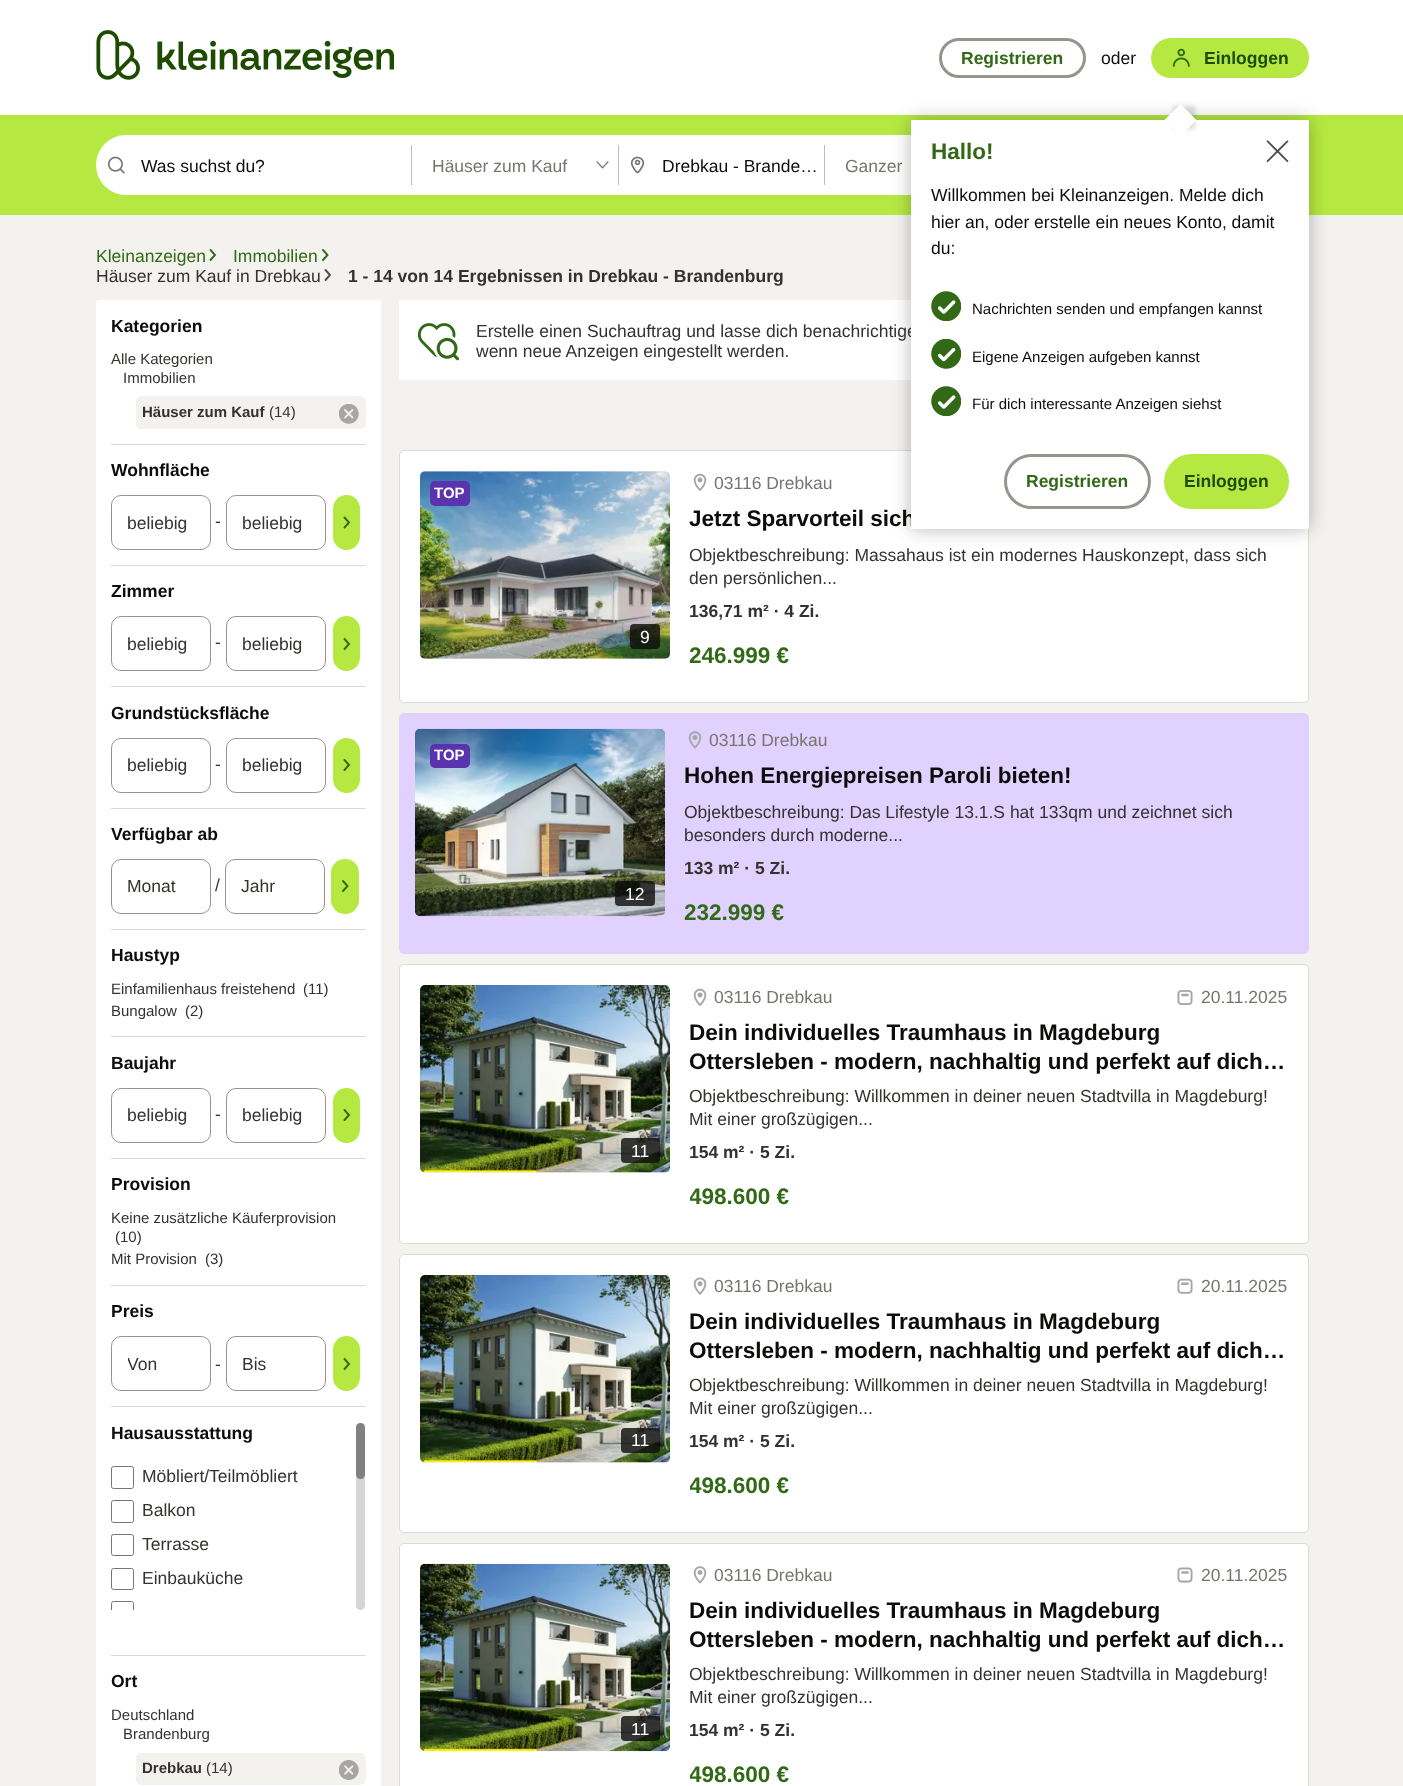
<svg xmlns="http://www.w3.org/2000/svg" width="1403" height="1786">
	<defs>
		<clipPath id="clip1"><rect x="128" y="1354" width="67" height="20" /></clipPath>
		<clipPath id="clip2"><rect x="111" y="1423" width="255" height="187" /></clipPath>
		<clipPath id="clip3"><rect x="690" y="1019" width="598" height="204" /></clipPath>
		<clipPath id="clip4"><rect x="690" y="1308" width="598" height="203" /></clipPath>
		<clipPath id="clip5"><rect x="690" y="1596" width="598" height="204" /></clipPath>
	</defs>
	<rect width="100%" height="100%" fill="#FFFFFF" />
	<rect x="0" y="115" width="1403" height="100" fill="#B5E941" />
	<rect x="96" y="135" width="1004" height="60" rx="30" fill="#FFFFFF" />
	<image x="107" y="156" width="18" height="18" href="assets/img1.png" />
	<text x="141" y="172" font-family="Liberation Sans" font-size="17.5" fill="#0C0C0B">Was suchst du?</text>
	<rect x="411" y="145" width="1" height="40" fill="#BEBCB7" />
	<image x="596" y="161" width="13" height="8" href="assets/img2.png" />
	<text x="432" y="172" font-family="Liberation Sans" font-size="17.5" fill="#77756F">Häuser zum Kauf</text>
	<rect x="618" y="145" width="1" height="40" fill="#BEBCB7" />
	<image x="630" y="156" width="15" height="18" href="assets/img3.png" />
	<text x="662" y="172" font-family="Liberation Sans" font-size="17.5" fill="#0C0C0B">Drebkau - Brande…</text>
	<rect x="824" y="145" width="1" height="40" fill="#BEBCB7" />
	<text x="845" y="172" font-family="Liberation Sans" font-size="17.5" fill="#77756F">Ganzer</text>
	<image x="96" y="30" width="298" height="50" href="assets/img4.png" />
	<rect x="940.5" y="39.5" width="144" height="37" rx="18.5" fill="none" stroke="#95958E" stroke-width="3" />
	<text x="961" y="64" font-family="Liberation Sans" font-size="17.5" font-weight="700" fill="#326916">Registrieren</text>
	<text x="1101" y="64" font-family="Liberation Sans" font-size="17.5" fill="#0C0C0B">oder</text>
	<rect x="1151" y="38" width="158" height="40" rx="20" fill="#B5E941" />
	<image x="1172" y="48" width="18" height="19" href="assets/img5.png" />
	<text x="1204" y="64" font-family="Liberation Sans" font-size="17.5" font-weight="700" fill="#1D4B00">Einloggen</text>
	<rect x="0" y="215" width="1403" height="1571" fill="#F4F2EF" />
	<rect x="399" y="300" width="910" height="80" rx="2.5" fill="#FFFFFF" />
	<rect x="399.5" y="450.5" width="909" height="252" rx="4.5" fill="#FFFFFF" stroke="#DDDBD5" />
	<rect x="911" y="120" width="398" height="409" fill="#0C0C0B" fill-opacity="0.3" filter="blur(9px)" />
	<text x="476" y="337" font-family="Liberation Sans" font-size="17.5" fill="#33322E">Erstelle einen Suchauftrag und lasse dich benachrichtige</text>
	<text x="689" y="526" font-family="Liberation Sans" font-size="22.5" font-weight="700" fill="#0C0C0B">Jetzt Sparvorteil sich</text>
	<rect x="911" y="120" width="398" height="409" fill="#FFFFFF" />
	<rect x="1173" y="106" width="22" height="23" fill="#0C0C0B" fill-opacity="0.15" filter="blur(2px)" />
	<path d="M1164.5 120L1180.5 104L1196.5 120L1180.5 136Z" fill="#FFFFFF" />
	<text x="931" y="159" font-family="Liberation Sans" font-size="22.5" font-weight="700" fill="#326916">Hallo!</text>
	<image x="1266" y="140" width="23" height="23" href="assets/img6.png" />
	<g font-family="Liberation Sans" font-size="17.5" fill="#0C0C0B">
		<text x="931" y="201">Willkommen bei Kleinanzeigen. Melde dich</text>
		<text x="931" y="228">hier an, oder erstelle ein neues Konto, damit</text>
		<text x="931" y="254">du:</text>
	</g>
	<image x="931" y="291" width="30" height="30" href="assets/img7.png" />
	<text x="972" y="314" font-family="Liberation Sans" font-size="15" fill="#0C0C0B">Nachrichten senden und empfangen kannst</text>
	<image x="931" y="339" width="30" height="30" href="assets/img8.png" />
	<text x="972" y="362" font-family="Liberation Sans" font-size="15" fill="#0C0C0B">Eigene Anzeigen aufgeben kannst</text>
	<image x="931" y="386" width="30" height="30" href="assets/img7.png" />
	<text x="972" y="409" font-family="Liberation Sans" font-size="15" fill="#0C0C0B">Für dich interessante Anzeigen siehst</text>
	<rect x="1005.5" y="455.5" width="144" height="52" rx="26" fill="none" stroke="#95958E" stroke-width="3" />
	<text x="1026" y="487" font-family="Liberation Sans" font-size="17.5" font-weight="700" fill="#326916">Registrieren</text>
	<rect x="1164" y="454" width="125" height="55" rx="27.5" fill="#B5E941" />
	<text x="1184" y="487" font-family="Liberation Sans" font-size="17.5" font-weight="700" fill="#1D4B00">Einloggen</text>
	<path d="M210.5 250L215 255L210.5 260" fill="none" stroke="#326916" stroke-width="1.9" stroke-linecap="round" />
	<text x="96" y="262" font-family="Liberation Sans" font-size="17.5" fill="#326916">Kleinanzeigen</text>
	<path d="M323 250L327.5 255L323 260" fill="none" stroke="#326916" stroke-width="1.9" stroke-linecap="round" />
	<text x="233" y="262" font-family="Liberation Sans" font-size="17.5" fill="#326916">Immobilien</text>
	<path d="M325.5 270L330 275L325.5 280" fill="none" stroke="#4D4D4D" stroke-width="1.9" stroke-linecap="round" />
	<text x="96" y="282" font-family="Liberation Sans" font-size="17.5" fill="#33322E">Häuser zum Kauf in Drebkau</text>
	<text x="348" y="282" font-family="Liberation Sans" font-size="17.5" font-weight="700" fill="#33322E">1 - 14 von 14 Ergebnissen in Drebkau - Brandenburg</text>
	<rect x="96" y="300" width="285" height="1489" rx="2.5" fill="#FFFFFF" />
	<text x="111" y="332" font-family="Liberation Sans" font-size="17.5" font-weight="700" fill="#0C0C0B">Kategorien</text>
	<g font-family="Liberation Sans" font-size="15" fill="#33322E">
		<text x="111" y="364">Alle Kategorien</text>
		<text x="123" y="383">Immobilien</text>
	</g>
	<rect x="136" y="396" width="230" height="33" rx="5" fill="#F4F2EF" />
	<text x="142" y="417" font-family="Liberation Sans" font-size="15" font-weight="700" fill="#33322E">Häuser zum Kauf</text>
	<text x="269" y="417" font-family="Liberation Sans" font-size="15" fill="#33322E">(14)</text>
	<image x="339" y="404" width="20" height="20" href="assets/img9.png" />
	<rect x="111" y="444" width="255" height="1" fill="#DDDBD5" />
	<text x="111" y="476" font-family="Liberation Sans" font-size="17.5" font-weight="700" fill="#0C0C0B">Wohnfläche</text>
	<rect x="111.5" y="495.5" width="99" height="54" rx="9.5" fill="none" stroke="#95958E" />
	<g font-family="Liberation Sans" font-size="17.5" fill="#33322E">
		<text x="127" y="529">beliebig</text>
		<text x="215" y="527">-</text>
	</g>
	<rect x="226.5" y="495.5" width="99" height="54" rx="9.5" fill="none" stroke="#95958E" />
	<text x="242" y="529" font-family="Liberation Sans" font-size="17.5" fill="#33322E">beliebig</text>
	<rect x="333" y="495" width="27" height="55" rx="13.5" fill="#B5E941" />
	<path d="M344.5 517.5L349 522.5L344.5 527.5" fill="none" stroke="#326916" stroke-width="1.9" stroke-linecap="round" />
	<rect x="111" y="565" width="255" height="1" fill="#DDDBD5" />
	<text x="111" y="597" font-family="Liberation Sans" font-size="17.5" font-weight="700" fill="#0C0C0B">Zimmer</text>
	<rect x="111.5" y="616.5" width="99" height="54" rx="9.5" fill="none" stroke="#95958E" />
	<g font-family="Liberation Sans" font-size="17.5" fill="#33322E">
		<text x="127" y="650">beliebig</text>
		<text x="215" y="648">-</text>
	</g>
	<rect x="226.5" y="616.5" width="99" height="54" rx="9.5" fill="none" stroke="#95958E" />
	<text x="242" y="650" font-family="Liberation Sans" font-size="17.5" fill="#33322E">beliebig</text>
	<rect x="333" y="616" width="27" height="55" rx="13.5" fill="#B5E941" />
	<path d="M344.5 639L349 644L344.5 649" fill="none" stroke="#326916" stroke-width="1.9" stroke-linecap="round" />
	<rect x="111" y="686" width="255" height="1" fill="#DDDBD5" />
	<text x="111" y="719" font-family="Liberation Sans" font-size="17.5" font-weight="700" fill="#0C0C0B">Grundstücksfläche</text>
	<rect x="111.5" y="738.5" width="99" height="54" rx="9.5" fill="none" stroke="#95958E" />
	<g font-family="Liberation Sans" font-size="17.5" fill="#33322E">
		<text x="127" y="771">beliebig</text>
		<text x="215" y="770">-</text>
	</g>
	<rect x="226.5" y="738.5" width="99" height="54" rx="9.5" fill="none" stroke="#95958E" />
	<text x="242" y="771" font-family="Liberation Sans" font-size="17.5" fill="#33322E">beliebig</text>
	<rect x="333" y="738" width="27" height="55" rx="13.5" fill="#B5E941" />
	<path d="M344.5 760L349 765L344.5 770" fill="none" stroke="#326916" stroke-width="1.9" stroke-linecap="round" />
	<rect x="111" y="808" width="255" height="1" fill="#DDDBD5" />
	<text x="111" y="840" font-family="Liberation Sans" font-size="17.5" font-weight="700" fill="#0C0C0B">Verfügbar ab</text>
	<rect x="111.5" y="859.5" width="99" height="54" rx="9.5" fill="none" stroke="#95958E" />
	<g font-family="Liberation Sans" font-size="17.5" fill="#33322E">
		<text x="127" y="892">Monat</text>
		<text x="215" y="891">/</text>
	</g>
	<rect x="225.5" y="859.5" width="99" height="54" rx="9.5" fill="none" stroke="#95958E" />
	<text x="241" y="892" font-family="Liberation Sans" font-size="17.5" fill="#33322E">Jahr</text>
	<rect x="331" y="859" width="28" height="55" rx="14" fill="#B5E941" />
	<path d="M343 881L347.5 886L343 891" fill="none" stroke="#326916" stroke-width="1.9" stroke-linecap="round" />
	<rect x="111" y="929" width="255" height="1" fill="#DDDBD5" />
	<text x="111" y="961" font-family="Liberation Sans" font-size="17.5" font-weight="700" fill="#0C0C0B">Haustyp</text>
	<g font-family="Liberation Sans" font-size="15" fill="#33322E">
		<text x="111" y="994">Einfamilienhaus freistehend</text>
		<text x="303" y="994">(11)</text>
		<text x="111" y="1016">Bungalow</text>
		<text x="185" y="1016">(2)</text>
	</g>
	<rect x="111" y="1036" width="255" height="1" fill="#DDDBD5" />
	<text x="111" y="1069" font-family="Liberation Sans" font-size="17.5" font-weight="700" fill="#0C0C0B">Baujahr</text>
	<rect x="111.5" y="1088.5" width="99" height="54" rx="9.5" fill="none" stroke="#95958E" />
	<g font-family="Liberation Sans" font-size="17.5" fill="#33322E">
		<text x="127" y="1121">beliebig</text>
		<text x="215" y="1120">-</text>
	</g>
	<rect x="226.5" y="1088.5" width="99" height="54" rx="9.5" fill="none" stroke="#95958E" />
	<text x="242" y="1121" font-family="Liberation Sans" font-size="17.5" fill="#33322E">beliebig</text>
	<rect x="333" y="1088" width="27" height="55" rx="13.5" fill="#B5E941" />
	<path d="M344.5 1110L349 1115L344.5 1120" fill="none" stroke="#326916" stroke-width="1.9" stroke-linecap="round" />
	<rect x="111" y="1158" width="255" height="1" fill="#DDDBD5" />
	<text x="111" y="1190" font-family="Liberation Sans" font-size="17.5" font-weight="700" fill="#0C0C0B">Provision</text>
	<g font-family="Liberation Sans" font-size="15" fill="#33322E">
		<text x="111" y="1223">Keine zusätzliche Käuferprovision</text>
		<text x="115" y="1242">(10)</text>
		<text x="111" y="1264">Mit Provision</text>
		<text x="205" y="1264">(3)</text>
	</g>
	<rect x="111" y="1285" width="255" height="1" fill="#DDDBD5" />
	<text x="111" y="1317" font-family="Liberation Sans" font-size="17.5" font-weight="700" fill="#0C0C0B">Preis</text>
	<rect x="111.5" y="1336.5" width="99" height="54" rx="9.5" fill="none" stroke="#95958E" />
	<g clip-path="url(#clip1)">
		<text x="127" y="1370" font-family="Liberation Sans" font-size="17.5" fill="#33322E">Von</text>
	</g>
	<text x="215" y="1370" font-family="Liberation Sans" font-size="17.5" fill="#33322E">-</text>
	<rect x="226.5" y="1336.5" width="99" height="54" rx="9.5" fill="none" stroke="#95958E" />
	<text x="242" y="1370" font-family="Liberation Sans" font-size="17.5" fill="#33322E">Bis</text>
	<rect x="333" y="1336" width="27" height="55" rx="13.5" fill="#B5E941" />
	<path d="M344.5 1359L349 1364L344.5 1369" fill="none" stroke="#326916" stroke-width="1.9" stroke-linecap="round" />
	<rect x="111" y="1406" width="255" height="1" fill="#DDDBD5" />
	<rect x="356" y="1423" width="9" height="187" rx="4.5" fill="#D6D6D6" />
	<text x="111" y="1439" font-family="Liberation Sans" font-size="17.5" font-weight="700" fill="#0C0C0B">Hausausstattung</text>
	<rect x="111.5" y="1466.5" width="22" height="22" rx="2" fill="none" stroke="#767676" />
	<text x="142" y="1482" font-family="Liberation Sans" font-size="17.5" fill="#33322E">Möbliert/Teilmöbliert</text>
	<rect x="111.5" y="1500.5" width="22" height="22" rx="2" fill="none" stroke="#767676" />
	<text x="142" y="1516" font-family="Liberation Sans" font-size="17.5" fill="#33322E">Balkon</text>
	<rect x="111.5" y="1534.5" width="22" height="21" rx="2" fill="none" stroke="#767676" />
	<text x="142" y="1550" font-family="Liberation Sans" font-size="17.5" fill="#33322E">Terrasse</text>
	<rect x="111.5" y="1568.5" width="22" height="21" rx="2" fill="none" stroke="#767676" />
	<text x="142" y="1584" font-family="Liberation Sans" font-size="17.5" fill="#33322E">Einbauküche</text>
	<g clip-path="url(#clip2)">
		<rect x="111.5" y="1601.5" width="22" height="22" rx="2" fill="none" stroke="#767676" />
	</g>
	<rect x="356" y="1423" width="9" height="56" rx="4.5" fill="#000000" fill-opacity="0.4" />
	<rect x="111" y="1655" width="255" height="1" fill="#DDDBD5" />
	<text x="111" y="1687" font-family="Liberation Sans" font-size="17.5" font-weight="700" fill="#0C0C0B">Ort</text>
	<g font-family="Liberation Sans" font-size="15" fill="#33322E">
		<text x="111" y="1720">Deutschland</text>
		<text x="123" y="1739">Brandenburg</text>
	</g>
	<rect x="136" y="1753" width="230" height="32" rx="5" fill="#F4F2EF" />
	<text x="142" y="1773" font-family="Liberation Sans" font-size="15" font-weight="700" fill="#33322E">Drebkau</text>
	<text x="206" y="1773" font-family="Liberation Sans" font-size="15" fill="#33322E">(14)</text>
	<image x="339" y="1760" width="20" height="20" href="assets/img10.png" />
	<image x="417" y="323" width="43" height="38" href="assets/img11.png" />
	<text x="476" y="357" font-family="Liberation Sans" font-size="17.5" fill="#33322E">wenn neue Anzeigen eingestellt werden.</text>
	<rect x="420" y="471" width="250" height="188" rx="5" fill="#F4F2EF" />
	<image x="420" y="471" width="250" height="188" href="assets/img12.png" />
	<rect x="430" y="481" width="40" height="25" rx="5" fill="#5A33AE" />
	<text x="434" y="498" font-family="Liberation Sans" font-size="15" font-weight="700" fill="#FFFFFF">TOP</text>
	<rect x="630" y="624" width="30" height="25" rx="4" fill="#0C0C0B" fill-opacity="0.8" />
	<text x="640" y="643" font-family="Liberation Sans" font-size="17.5" fill="#FFFFFF">9</text>
	<image x="693" y="473" width="14" height="18" href="assets/img13.png" />
	<text x="714" y="489" font-family="Liberation Sans" font-size="17.5" fill="#77756F">03116 Drebkau</text>
	<g font-family="Liberation Sans" font-size="17.5" fill="#33322E">
		<text x="689" y="561">Objektbeschreibung: Massahaus ist ein modernes Hauskonzept, dass sich</text>
		<text x="689" y="584">den persönlichen...</text>
	</g>
	<text x="689" y="617" font-family="Liberation Sans" font-size="17.5" font-weight="700" fill="#33322E">136,71 m² · 4 Zi.</text>
	<text x="689" y="663" font-family="Liberation Sans" font-size="22.5" font-weight="700" fill="#326916">246.999 €</text>
	<rect x="399" y="713" width="910" height="241" rx="5" fill="#E0D1FF" />
	<image x="415" y="728" width="250" height="189" href="assets/img14.png" />
	<rect x="430" y="744" width="40" height="24" rx="5" fill="#5A33AE" />
	<text x="434" y="760" font-family="Liberation Sans" font-size="15" font-weight="700" fill="#FFFFFF">TOP</text>
	<rect x="615" y="881" width="40" height="25" rx="4" fill="#0C0C0B" fill-opacity="0.8" />
	<text x="625" y="900" font-family="Liberation Sans" font-size="17.5" fill="#FFFFFF">12</text>
	<image x="688" y="731" width="14" height="18" href="assets/img15.png" />
	<text x="709" y="746" font-family="Liberation Sans" font-size="17.5" fill="#77756F">03116 Drebkau</text>
	<text x="684" y="783" font-family="Liberation Sans" font-size="22.5" font-weight="700" fill="#0C0C0B">Hohen Energiepreisen Paroli bieten!</text>
	<g font-family="Liberation Sans" font-size="17.5" fill="#33322E">
		<text x="684" y="818">Objektbeschreibung: Das Lifestyle 13.1.S hat 133qm und zeichnet sich</text>
		<text x="684" y="841">besonders durch moderne...</text>
	</g>
	<text x="684" y="874" font-family="Liberation Sans" font-size="17.5" font-weight="700" fill="#33322E">133 m² · 5 Zi.</text>
	<text x="684" y="920" font-family="Liberation Sans" font-size="22.5" font-weight="700" fill="#326916">232.999 €</text>
	<rect x="399.5" y="964.5" width="909" height="279" rx="4.5" fill="#FFFFFF" stroke="#DDDBD5" />
	<rect x="420" y="985" width="250" height="188" rx="5" fill="#F4F2EF" />
	<image x="420" y="985" width="250" height="188" href="assets/img16.png" />
	<rect x="621" y="1138" width="39" height="25" rx="4" fill="#0C0C0B" fill-opacity="0.8" />
	<text x="631" y="1157" font-family="Liberation Sans" font-size="17.5" fill="#FFFFFF">11</text>
	<image x="693" y="988" width="14" height="18" href="assets/img13.png" />
	<text x="714" y="1003" font-family="Liberation Sans" font-size="17.5" fill="#77756F">03116 Drebkau</text>
	<image x="1177" y="990" width="16" height="15" href="assets/img17.png" />
	<text x="1201" y="1003" font-family="Liberation Sans" font-size="17.5" fill="#77756F">20.11.2025</text>
	<g font-family="Liberation Sans" font-size="22.5" font-weight="700" fill="#0C0C0B">
		<text x="689" y="1040">Dein individuelles Traumhaus in Magdeburg</text>
		<text x="689" y="1069">Ottersleben - modern, nachhaltig und perfekt auf dich…</text>
	</g>
	<g font-family="Liberation Sans" font-size="17.5" fill="#33322E">
		<text x="689" y="1102">Objektbeschreibung: Willkommen in deiner neuen Stadtvilla in Magdeburg!</text>
		<text x="689" y="1125">Mit einer großzügigen...</text>
	</g>
	<text x="689" y="1158" font-family="Liberation Sans" font-size="17.5" font-weight="700" fill="#33322E">154 m² · 5 Zi.</text>
	<g clip-path="url(#clip3)">
		<text x="689" y="1204" font-family="Liberation Sans" font-size="22.5" font-weight="700" fill="#326916">498.600 €</text>
	</g>
	<rect x="399.5" y="1254.5" width="909" height="278" rx="4.5" fill="#FFFFFF" stroke="#DDDBD5" />
	<rect x="420" y="1275" width="250" height="188" rx="5" fill="#F4F2EF" />
	<image x="420" y="1275" width="250" height="188" href="assets/img16.png" />
	<rect x="621" y="1428" width="39" height="25" rx="4" fill="#0C0C0B" fill-opacity="0.8" />
	<text x="631" y="1446" font-family="Liberation Sans" font-size="17.5" fill="#FFFFFF">11</text>
	<image x="693" y="1277" width="14" height="18" href="assets/img18.png" />
	<text x="714" y="1292" font-family="Liberation Sans" font-size="17.5" fill="#77756F">03116 Drebkau</text>
	<image x="1177" y="1278" width="16" height="16" href="assets/img19.png" />
	<text x="1201" y="1292" font-family="Liberation Sans" font-size="17.5" fill="#77756F">20.11.2025</text>
	<g font-family="Liberation Sans" font-size="22.5" font-weight="700" fill="#0C0C0B">
		<text x="689" y="1329">Dein individuelles Traumhaus in Magdeburg</text>
		<text x="689" y="1358">Ottersleben - modern, nachhaltig und perfekt auf dich…</text>
	</g>
	<g font-family="Liberation Sans" font-size="17.5" fill="#33322E">
		<text x="689" y="1391">Objektbeschreibung: Willkommen in deiner neuen Stadtvilla in Magdeburg!</text>
		<text x="689" y="1414">Mit einer großzügigen...</text>
	</g>
	<text x="689" y="1447" font-family="Liberation Sans" font-size="17.5" font-weight="700" fill="#33322E">154 m² · 5 Zi.</text>
	<g clip-path="url(#clip4)">
		<text x="689" y="1493" font-family="Liberation Sans" font-size="22.5" font-weight="700" fill="#326916">498.600 €</text>
	</g>
	<rect x="399.5" y="1543.5" width="909" height="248" rx="4.5" fill="#FFFFFF" stroke="#DDDBD5" />
	<image x="420" y="1563" width="250" height="189" href="assets/img20.png" />
	<rect x="621" y="1716" width="39" height="25" rx="4" fill="#0C0C0B" fill-opacity="0.8" />
	<text x="631" y="1735" font-family="Liberation Sans" font-size="17.5" fill="#FFFFFF">11</text>
	<image x="693" y="1566" width="14" height="18" href="assets/img21.png" />
	<text x="714" y="1581" font-family="Liberation Sans" font-size="17.5" fill="#77756F">03116 Drebkau</text>
	<image x="1177" y="1567" width="16" height="16" href="assets/img22.png" />
	<text x="1201" y="1581" font-family="Liberation Sans" font-size="17.5" fill="#77756F">20.11.2025</text>
	<g font-family="Liberation Sans" font-size="22.5" font-weight="700" fill="#0C0C0B">
		<text x="689" y="1618">Dein individuelles Traumhaus in Magdeburg</text>
		<text x="689" y="1647">Ottersleben - modern, nachhaltig und perfekt auf dich…</text>
	</g>
	<g font-family="Liberation Sans" font-size="17.5" fill="#33322E">
		<text x="689" y="1680">Objektbeschreibung: Willkommen in deiner neuen Stadtvilla in Magdeburg!</text>
		<text x="689" y="1703">Mit einer großzügigen...</text>
	</g>
	<text x="689" y="1736" font-family="Liberation Sans" font-size="17.5" font-weight="700" fill="#33322E">154 m² · 5 Zi.</text>
	<g clip-path="url(#clip5)">
		<text x="689" y="1782" font-family="Liberation Sans" font-size="22.5" font-weight="700" fill="#326916">498.600 €</text>
	</g>
</svg>
